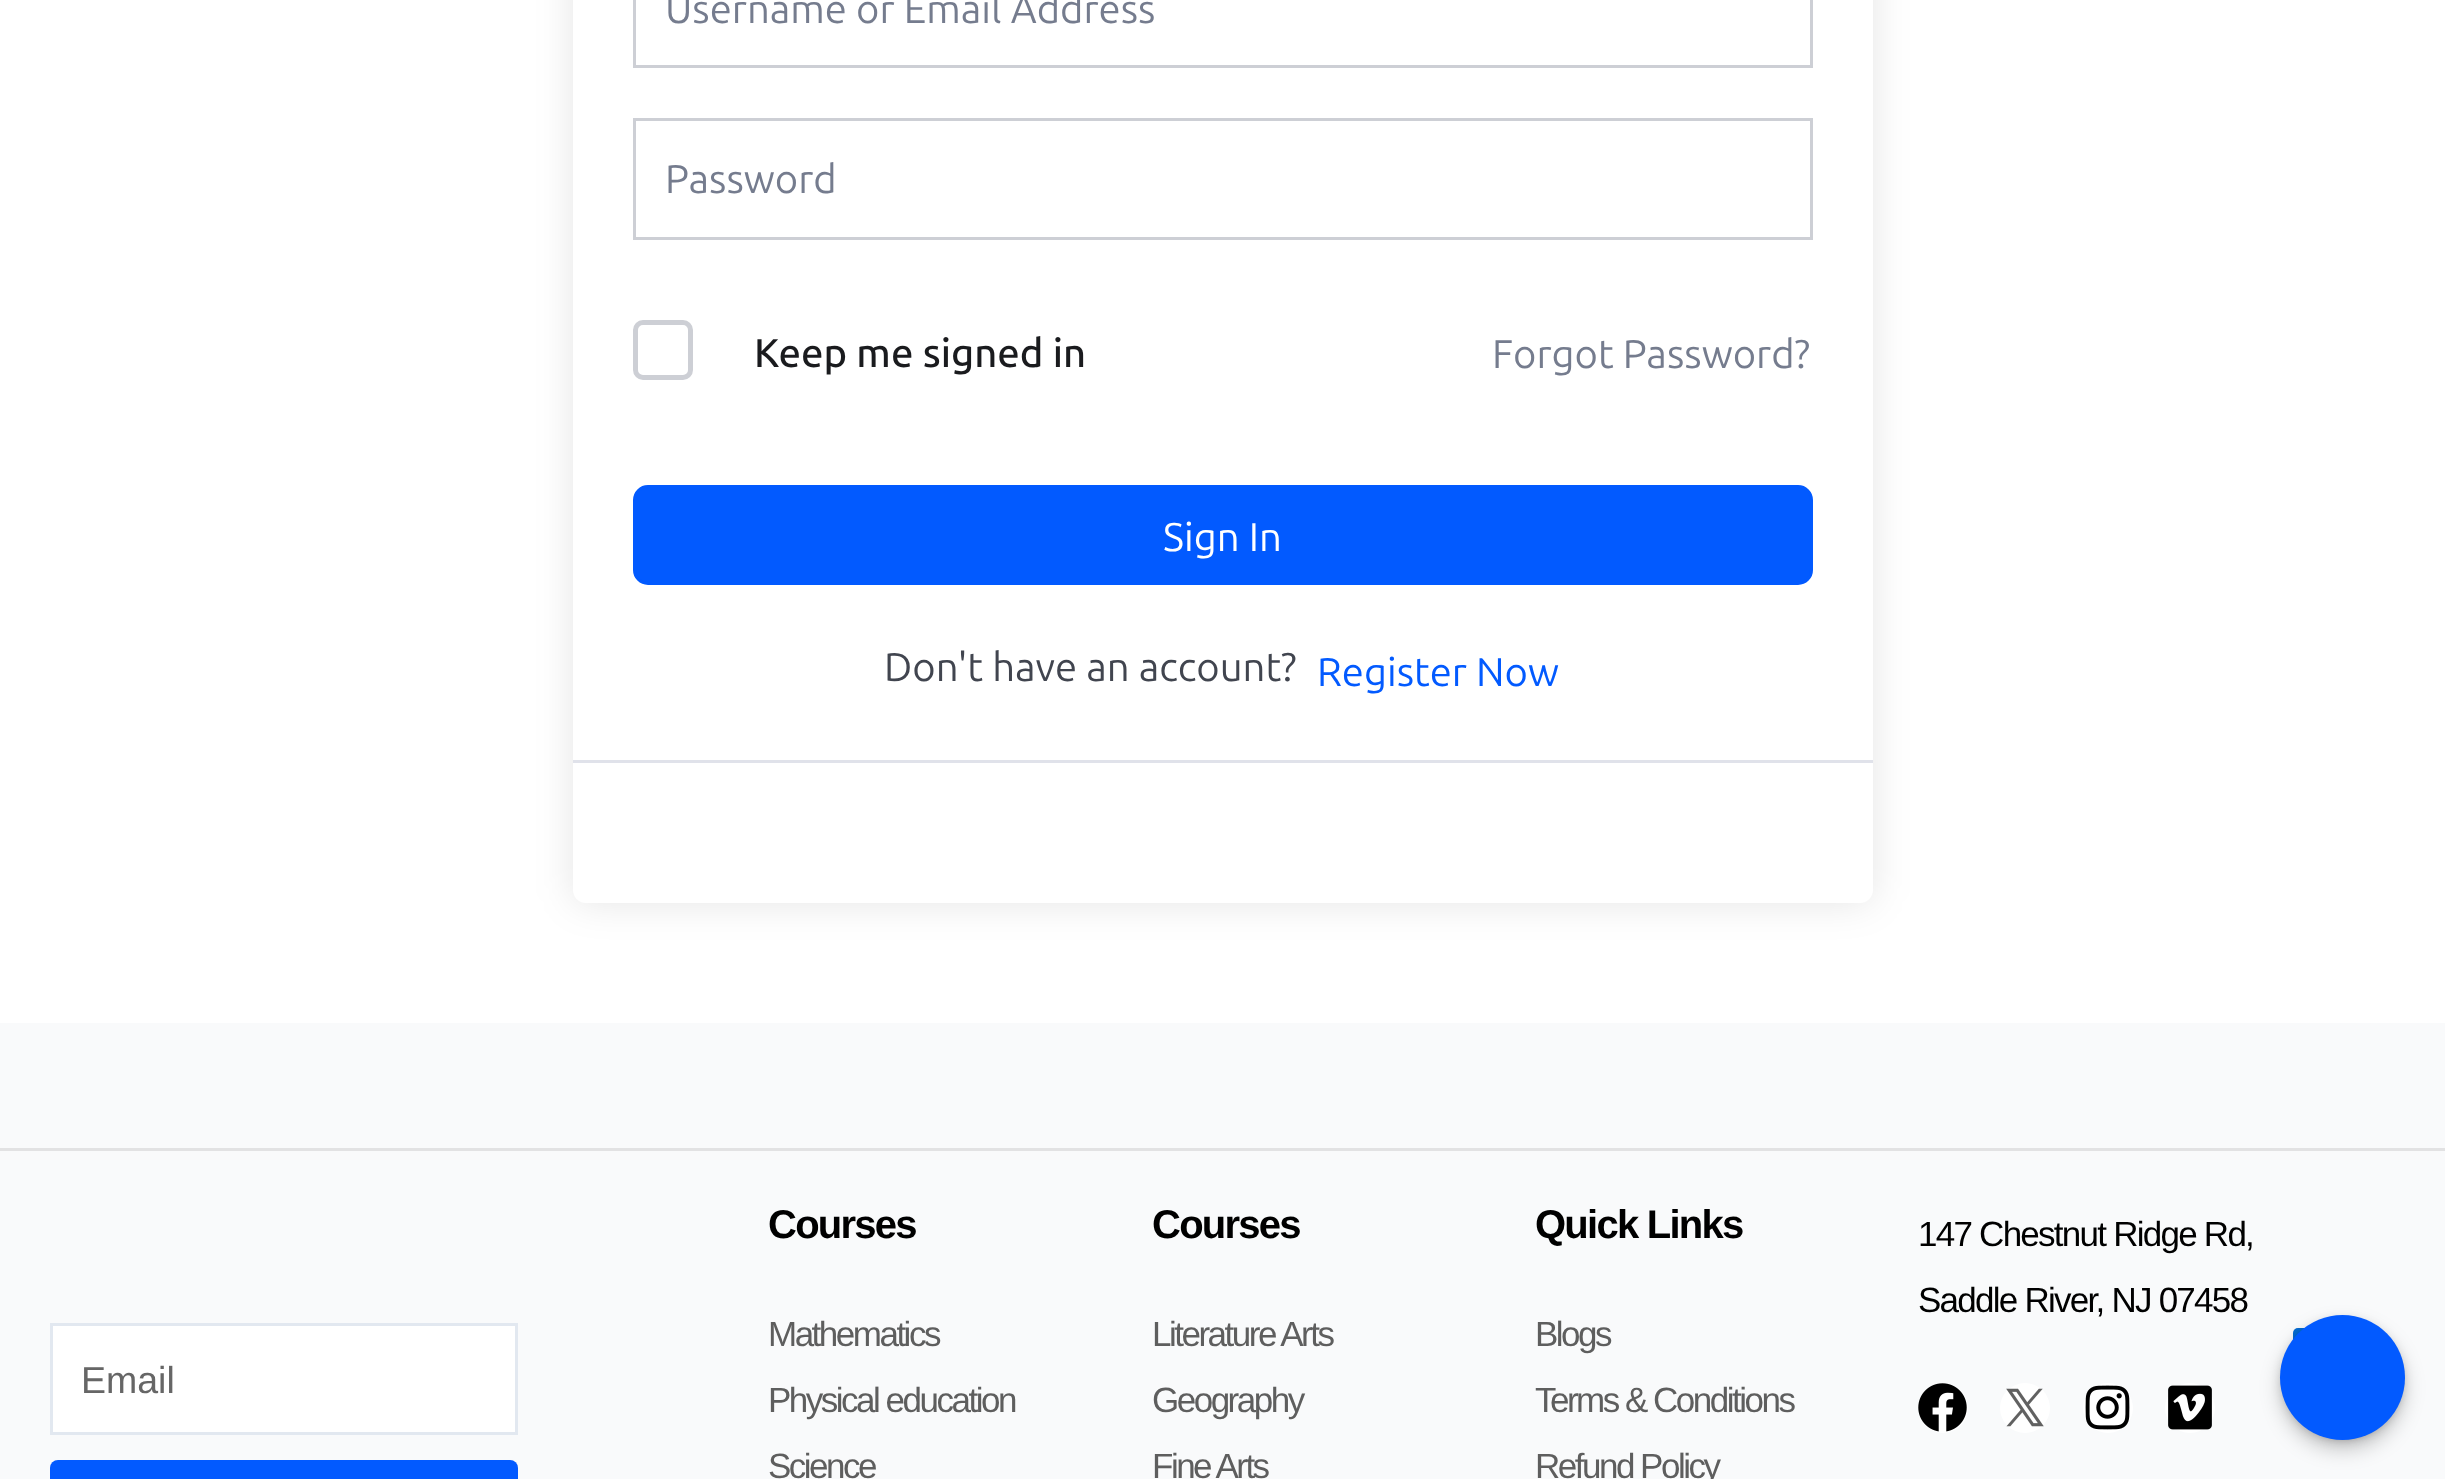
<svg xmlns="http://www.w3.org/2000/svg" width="2445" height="1479">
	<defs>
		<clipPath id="clip1"><path d="M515 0H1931V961H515ZM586-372H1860C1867-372 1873-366 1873-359V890C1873 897 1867 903 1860 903H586C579 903 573 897 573 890V-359C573-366 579-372 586-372Z" clip-rule="evenodd" /></clipPath>
	</defs>
	<rect width="100%" height="100%" fill="#F9FAFB" />
	<rect x="0" y="0" width="2445" height="1023" fill="#FFFFFF" />
	<g clip-path="url(#clip1)">
		<rect x="573" y="-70" width="1300" height="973" rx="13" fill="#000000" fill-opacity="0.1" filter="blur(19px)" />
	</g>
	<rect x="634.5" y="-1.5" width="1177" height="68" fill="none" stroke="#CDCFD5" stroke-width="3" />
	<text x="665" y="23" font-family="Ubuntu" font-size="40" fill="#757C8E">Username or Email Address</text>
	<rect x="634.5" y="119.5" width="1177" height="119" fill="none" stroke="#CDCFD5" stroke-width="3" />
	<text x="665" y="193" font-family="Ubuntu" font-size="40" fill="#757C8E">Password</text>
	<rect x="635.5" y="322.5" width="55" height="55" rx="7.5" fill="none" stroke="#CDCFD5" stroke-width="5" />
	<text x="754" y="367" font-family="Ubuntu" font-size="40" font-weight="500" fill="#1A1B1E">Keep me signed in</text>
	<text x="1492" y="368" font-family="Ubuntu" font-size="40" fill="#757C8E">Forgot Password?</text>
	<rect x="634.5" y="486.5" width="1177" height="97" rx="13.5" fill="#025AFF" stroke="#025AFF" stroke-width="3" />
	<text x="1163" y="551" font-family="Ubuntu" font-size="40" fill="#FFFFFF">Sign In</text>
	<text x="884" y="681" font-family="Ubuntu" font-size="40" fill="#41454F">Don't have an account?</text>
	<text x="1317" y="686" font-family="Ubuntu" font-size="40" fill="#025AFF">Register Now</text>
	<rect x="573" y="760" width="1300" height="3" fill="#E0E2EA" />
	<rect x="0" y="1148" width="2445" height="3" fill="#E2E2E3" />
	<text x="768" y="1238" font-family="Liberation Sans" font-size="40" font-weight="700" letter-spacing="-1.75" fill="#000000">Courses</text>
	<g font-family="Liberation Sans" font-size="35" letter-spacing="-2.5" fill="#5E5E5E">
		<text x="768" y="1346">Mathematics</text>
		<text x="768" y="1412">Physical education</text>
		<text x="768" y="1478">Science</text>
	</g>
	<text x="1152" y="1238" font-family="Liberation Sans" font-size="40" font-weight="700" letter-spacing="-1.75" fill="#000000">Courses</text>
	<g font-family="Liberation Sans" font-size="35" letter-spacing="-2.5" fill="#5E5E5E">
		<text x="1152" y="1346">Literature Arts</text>
		<text x="1152" y="1412">Geography</text>
		<text x="1152" y="1478">Fine Arts</text>
	</g>
	<text x="1535" y="1238" font-family="Liberation Sans" font-size="40" font-weight="700" letter-spacing="-1.75" fill="#000000">Quick Links</text>
	<g font-family="Liberation Sans" font-size="35" letter-spacing="-2.5" fill="#5E5E5E">
		<text x="1535" y="1346">Blogs</text>
		<text x="1535" y="1412">Terms &amp; Conditions</text>
		<text x="1535" y="1478">Refund Policy</text>
	</g>
	<g font-family="Liberation Sans" font-size="35" letter-spacing="-1.75" fill="#000000">
		<text x="1918" y="1246">147 Chestnut Ridge Rd,</text>
		<text x="1918" y="1312">Saddle River, NJ 07458</text>
	</g>
	<circle cx="1943" cy="1408" r="25" fill="#FFFFFF" />
	<image x="1918" y="1383" width="49" height="49" href="assets/img1.png" />
	<circle cx="2025" cy="1408" r="25" fill="#FFFFFF" />
	<image x="2006" y="1388" width="38" height="39" href="assets/img2.png" />
	<circle cx="2108" cy="1408" r="25" fill="#FFFFFF" />
	<image x="2085" y="1385" width="45" height="45" href="assets/img3.png" />
	<circle cx="2190" cy="1408" r="25" fill="#FFFFFF" />
	<image x="2168" y="1385" width="44" height="45" href="assets/img4.png" />
	<rect x="51.5" y="1324.5" width="465" height="109" fill="#FFFFFF" stroke="#E2E8F0" stroke-width="3" />
	<text x="81" y="1393" font-family="Liberation Sans" font-size="37.5" fill="#666666">Email</text>
	<rect x="50" y="1460" width="468" height="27" rx="8" fill="#025AFF" />
	<rect x="2293" y="1328" width="77" height="77" rx="5" fill="#046BD2" />
	<rect x="2280" y="1325" width="125" height="125" rx="62.5" fill="#000000" fill-opacity="0.2" filter="blur(10px)" />
	<rect x="2283" y="1320" width="120" height="120" rx="60" fill="#000000" fill-opacity="0.1" filter="blur(2.5px)" />
	<rect x="2280" y="1318" width="125" height="125" rx="62.5" fill="#000000" fill-opacity="0.1" filter="blur(4px)" />
	<circle cx="2342.5" cy="1377.5" r="62.5" fill="#025AFF" />
</svg>
